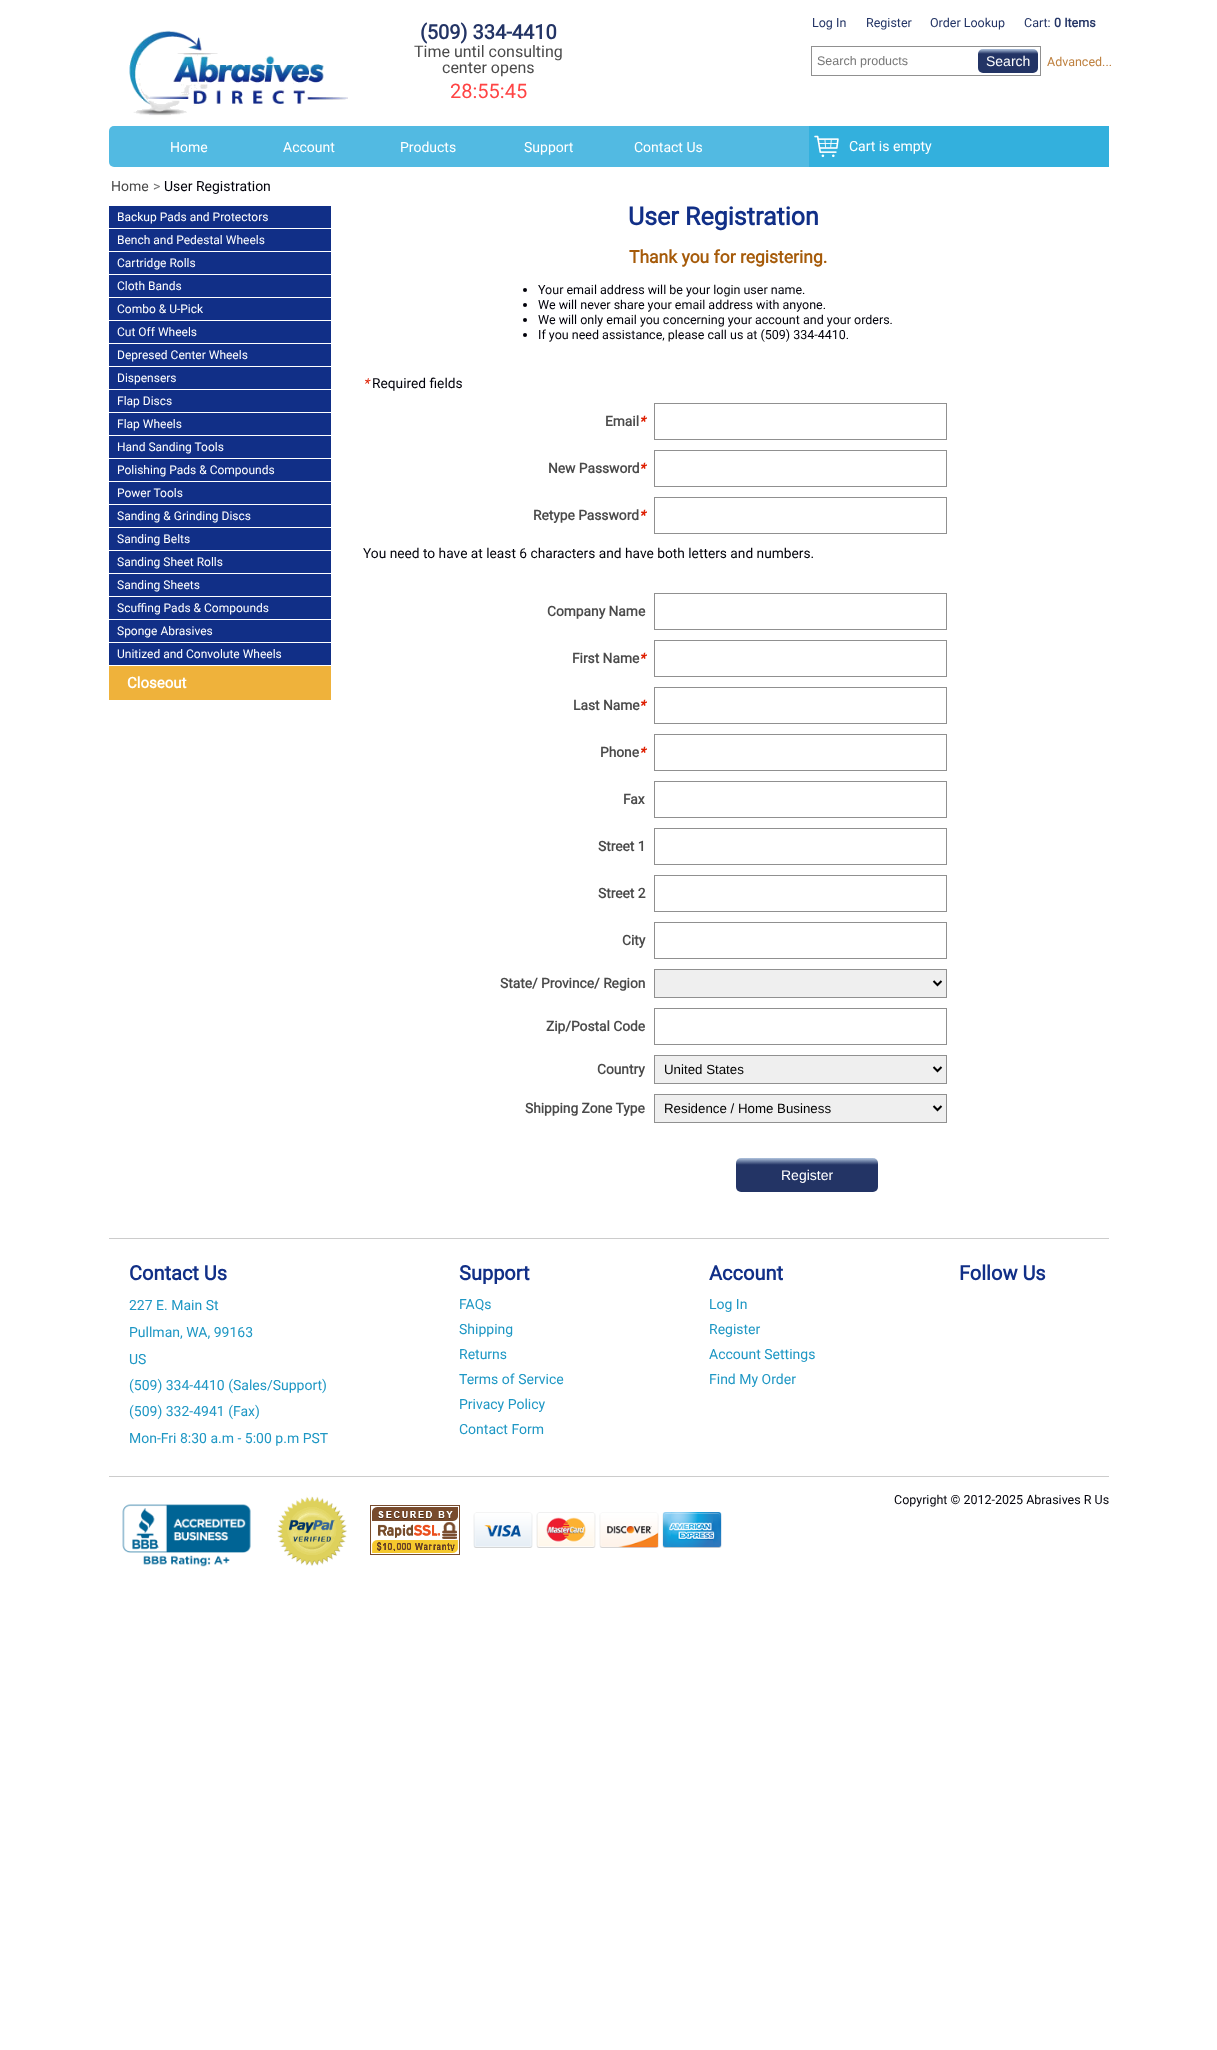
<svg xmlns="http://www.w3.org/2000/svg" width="1217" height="2050">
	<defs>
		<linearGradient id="g1" gradientUnits="userSpaceOnUse" x1="1008" y1="73" x2="1008" y2="49"><stop offset="0.8" stop-color="#233465" /><stop offset="1" stop-color="#B0C4DE" /></linearGradient>
		<linearGradient id="g2" gradientUnits="userSpaceOnUse" x1="807" y1="1192" x2="807" y2="1158"><stop offset="0.8" stop-color="#233465" /><stop offset="1" stop-color="#B0C4DE" /></linearGradient>
	</defs>
	<rect width="100%" height="100%" fill="#FFFFFF" />
	<image x="129" y="30" width="219" height="86" href="assets/img1.png" />
	<text x="420" y="39" font-family="Roboto" font-size="20" font-weight="700" fill="#233465">(509) 334-4410</text>
	<g font-family="Roboto" font-size="16" fill="#4A4A4A">
		<text x="414" y="57">Time until consulting</text>
		<text x="442" y="73">center opens</text>
	</g>
	<text x="450" y="98" font-family="Roboto" font-size="20" fill="#FF4444">28:55:45</text>
	<g font-family="Roboto" font-size="12.5" fill="#233465">
		<text x="812" y="27">Log In</text>
		<text x="866" y="27">Register</text>
		<text x="930" y="27">Order Lookup</text>
		<text x="1024" y="27">Cart:</text>
	</g>
	<text x="1054" y="27" font-family="Roboto" font-size="12.5" font-weight="700" fill="#233465">0 Items</text>
	<rect x="811.5" y="46.5" width="229" height="29" fill="none" stroke="#909090" />
	<text x="817" y="65" font-family="Liberation Sans" font-size="12.5" fill="#777777">Search products</text>
	<rect x="978" y="49" width="60" height="24" rx="5" fill="url(#g1)" />
	<text x="986" y="66" font-family="Liberation Sans" font-size="14" fill="#FFFFFF">Search</text>
	<text x="1047" y="66" font-family="Roboto" font-size="12.5" fill="#BF8241">Advanced...</text>
	<rect x="109" y="126" width="1000" height="41" rx="5" fill="#52BAE2" />
	<g font-family="Roboto" font-size="14" fill="#FFFFFF">
		<text x="170" y="152">Home</text>
		<text x="283" y="152">Account</text>
		<text x="400" y="152">Products</text>
		<text x="524" y="152">Support</text>
		<text x="634" y="152">Contact Us</text>
	</g>
	<rect x="809" y="126" width="300" height="41" fill="#33B0DD" />
	<image x="814" y="135" width="25" height="23" href="assets/img2.png" />
	<text x="849" y="151" font-family="Roboto" font-size="14" fill="#FFFFFF">Cart is empty</text>
	<text x="111" y="191" font-family="Roboto" font-size="14" fill="#4A4A4A">Home</text>
	<text x="153" y="191" font-family="Roboto" font-size="14" fill="#777777">&gt;</text>
	<text x="164" y="191" font-family="Roboto" font-size="14" fill="#000009">User Registration</text>
	<rect x="109" y="206" width="222" height="22" fill="#112F87" />
	<text x="117" y="221" font-family="Roboto" font-size="12" fill="#FFFFFF">Backup Pads and Protectors</text>
	<rect x="109" y="229" width="222" height="22" fill="#112F87" />
	<text x="117" y="244" font-family="Roboto" font-size="12" fill="#FFFFFF">Bench and Pedestal Wheels</text>
	<rect x="109" y="252" width="222" height="22" fill="#112F87" />
	<text x="117" y="267" font-family="Roboto" font-size="12" fill="#FFFFFF">Cartridge Rolls</text>
	<rect x="109" y="275" width="222" height="22" fill="#112F87" />
	<text x="117" y="290" font-family="Roboto" font-size="12" fill="#FFFFFF">Cloth Bands</text>
	<rect x="109" y="298" width="222" height="22" fill="#112F87" />
	<text x="117" y="313" font-family="Roboto" font-size="12" fill="#FFFFFF">Combo &amp; U-Pick</text>
	<rect x="109" y="321" width="222" height="22" fill="#112F87" />
	<text x="117" y="336" font-family="Roboto" font-size="12" fill="#FFFFFF">Cut Off Wheels</text>
	<rect x="109" y="344" width="222" height="22" fill="#112F87" />
	<text x="117" y="359" font-family="Roboto" font-size="12" fill="#FFFFFF">Depresed Center Wheels</text>
	<rect x="109" y="367" width="222" height="22" fill="#112F87" />
	<text x="117" y="382" font-family="Roboto" font-size="12" fill="#FFFFFF">Dispensers</text>
	<rect x="109" y="390" width="222" height="22" fill="#112F87" />
	<text x="117" y="405" font-family="Roboto" font-size="12" fill="#FFFFFF">Flap Discs</text>
	<rect x="109" y="413" width="222" height="22" fill="#112F87" />
	<text x="117" y="428" font-family="Roboto" font-size="12" fill="#FFFFFF">Flap Wheels</text>
	<rect x="109" y="436" width="222" height="22" fill="#112F87" />
	<text x="117" y="451" font-family="Roboto" font-size="12" fill="#FFFFFF">Hand Sanding Tools</text>
	<rect x="109" y="459" width="222" height="22" fill="#112F87" />
	<text x="117" y="474" font-family="Roboto" font-size="12" fill="#FFFFFF">Polishing Pads &amp; Compounds</text>
	<rect x="109" y="482" width="222" height="22" fill="#112F87" />
	<text x="117" y="497" font-family="Roboto" font-size="12" fill="#FFFFFF">Power Tools</text>
	<rect x="109" y="505" width="222" height="22" fill="#112F87" />
	<text x="117" y="520" font-family="Roboto" font-size="12" fill="#FFFFFF">Sanding &amp; Grinding Discs</text>
	<rect x="109" y="528" width="222" height="22" fill="#112F87" />
	<text x="117" y="543" font-family="Roboto" font-size="12" fill="#FFFFFF">Sanding Belts</text>
	<rect x="109" y="551" width="222" height="22" fill="#112F87" />
	<text x="117" y="566" font-family="Roboto" font-size="12" fill="#FFFFFF">Sanding Sheet Rolls</text>
	<rect x="109" y="574" width="222" height="22" fill="#112F87" />
	<text x="117" y="589" font-family="Roboto" font-size="12" fill="#FFFFFF">Sanding Sheets</text>
	<rect x="109" y="597" width="222" height="22" fill="#112F87" />
	<text x="117" y="612" font-family="Roboto" font-size="12" fill="#FFFFFF">Scuffing Pads &amp; Compounds</text>
	<rect x="109" y="620" width="222" height="22" fill="#112F87" />
	<text x="117" y="635" font-family="Roboto" font-size="12" fill="#FFFFFF">Sponge Abrasives</text>
	<rect x="109" y="643" width="222" height="22" fill="#112F87" />
	<text x="117" y="658" font-family="Roboto" font-size="12" fill="#FFFFFF">Unitized and Convolute Wheels</text>
	<rect x="109" y="666" width="222" height="34" fill="#EFB23B" />
	<text x="127" y="688" font-family="Roboto" font-size="15" font-weight="700" fill="#FFFFFF">Closeout</text>
	<text x="628" y="225" font-family="Roboto" font-size="25" font-weight="700" fill="#112F87">User Registration</text>
	<text x="629" y="263" font-family="Roboto" font-size="17.5" font-weight="700" fill="#A65B0A">Thank you for registering.</text>
	<circle cx="525" cy="290" r="2" fill="#000009" />
	<text x="538" y="294" font-family="Roboto" font-size="12.5" fill="#000009">Your email address will be your login user name.</text>
	<circle cx="525" cy="305" r="2" fill="#000009" />
	<text x="538" y="309" font-family="Roboto" font-size="12.5" fill="#000009">We will never share your email address with anyone.</text>
	<circle cx="525" cy="320" r="2" fill="#000009" />
	<text x="538" y="324" font-family="Roboto" font-size="12.5" fill="#000009">We will only email you concerning your account and your orders.</text>
	<circle cx="525" cy="335" r="2" fill="#000009" />
	<text x="538" y="339" font-family="Roboto" font-size="12.5" fill="#000009">If you need assistance, please call us at (509) 334-4410.</text>
	<text x="363" y="388" font-family="Roboto" font-size="13.75" font-style="italic" fill="#DE1E00">*</text>
	<text x="372" y="388" font-family="Roboto" font-size="13.75" fill="#000009">Required fields</text>
	<text x="605" y="426" font-family="Roboto" font-size="13.75" font-weight="700" fill="#4A4A4A">Email</text>
	<text x="639" y="426" font-family="Roboto" font-size="13.75" font-weight="700" font-style="italic" fill="#DE1E00">*</text>
	<rect x="654.5" y="403.5" width="292" height="36" fill="none" stroke="#909090" />
	<text x="548" y="473" font-family="Roboto" font-size="13.75" font-weight="700" fill="#4A4A4A">New Password</text>
	<text x="639" y="473" font-family="Roboto" font-size="13.75" font-weight="700" font-style="italic" fill="#DE1E00">*</text>
	<rect x="654.5" y="450.5" width="292" height="36" fill="none" stroke="#909090" />
	<text x="533" y="520" font-family="Roboto" font-size="13.75" font-weight="700" fill="#4A4A4A">Retype Password</text>
	<text x="639" y="520" font-family="Roboto" font-size="13.75" font-weight="700" font-style="italic" fill="#DE1E00">*</text>
	<rect x="654.5" y="497.5" width="292" height="36" fill="none" stroke="#909090" />
	<text x="363" y="558" font-family="Roboto" font-size="13.75" fill="#000009">You need to have at least 6 characters and have both letters and numbers.</text>
	<text x="547" y="616" font-family="Roboto" font-size="13.75" font-weight="700" fill="#4A4A4A">Company Name</text>
	<rect x="654.5" y="593.5" width="292" height="36" fill="none" stroke="#909090" />
	<text x="572" y="663" font-family="Roboto" font-size="13.75" font-weight="700" fill="#4A4A4A">First Name</text>
	<text x="639" y="663" font-family="Roboto" font-size="13.75" font-weight="700" font-style="italic" fill="#DE1E00">*</text>
	<rect x="654.5" y="640.5" width="292" height="36" fill="none" stroke="#909090" />
	<text x="573" y="710" font-family="Roboto" font-size="13.75" font-weight="700" fill="#4A4A4A">Last Name</text>
	<text x="639" y="710" font-family="Roboto" font-size="13.75" font-weight="700" font-style="italic" fill="#DE1E00">*</text>
	<rect x="654.5" y="687.5" width="292" height="36" fill="none" stroke="#909090" />
	<text x="600" y="757" font-family="Roboto" font-size="13.75" font-weight="700" fill="#4A4A4A">Phone</text>
	<text x="639" y="757" font-family="Roboto" font-size="13.75" font-weight="700" font-style="italic" fill="#DE1E00">*</text>
	<rect x="654.5" y="734.5" width="292" height="36" fill="none" stroke="#909090" />
	<text x="623" y="804" font-family="Roboto" font-size="13.75" font-weight="700" fill="#4A4A4A">Fax</text>
	<rect x="654.5" y="781.5" width="292" height="36" fill="none" stroke="#909090" />
	<text x="598" y="851" font-family="Roboto" font-size="13.75" font-weight="700" fill="#4A4A4A">Street 1</text>
	<rect x="654.5" y="828.5" width="292" height="36" fill="none" stroke="#909090" />
	<text x="598" y="898" font-family="Roboto" font-size="13.75" font-weight="700" fill="#4A4A4A">Street 2</text>
	<rect x="654.5" y="875.5" width="292" height="36" fill="none" stroke="#909090" />
	<text x="622" y="945" font-family="Roboto" font-size="13.75" font-weight="700" fill="#4A4A4A">City</text>
	<rect x="654.5" y="922.5" width="292" height="36" fill="none" stroke="#909090" />
	<text x="500" y="988" font-family="Roboto" font-size="13.75" font-weight="700" fill="#4A4A4A">State/ Province/ Region</text>
	<rect x="654.5" y="969.5" width="292" height="28" fill="#EFEFEF" stroke="#909090" />
	<path d="M933.5 981L937.5 985L941.5 981" fill="none" stroke="#000000" stroke-width="2" />
	<text x="546" y="1031" font-family="Roboto" font-size="13.75" font-weight="700" fill="#4A4A4A">Zip/Postal Code</text>
	<rect x="654.5" y="1008.5" width="292" height="36" fill="none" stroke="#909090" />
	<text x="597" y="1074" font-family="Roboto" font-size="13.75" font-weight="700" fill="#4A4A4A">Country</text>
	<rect x="654.5" y="1055.5" width="292" height="28" fill="#EFEFEF" stroke="#909090" />
	<path d="M933.5 1067L937.5 1071L941.5 1067" fill="none" stroke="#000000" stroke-width="2" />
	<text x="664" y="1074" font-family="Liberation Sans" font-size="13.3" fill="#000000">United States</text>
	<text x="525" y="1113" font-family="Roboto" font-size="13.75" font-weight="700" fill="#4A4A4A">Shipping Zone Type</text>
	<rect x="654.5" y="1094.5" width="292" height="28" fill="#EFEFEF" stroke="#909090" />
	<path d="M933.5 1106L937.5 1110L941.5 1106" fill="none" stroke="#000000" stroke-width="2" />
	<text x="664" y="1113" font-family="Liberation Sans" font-size="13.3" fill="#000000">Residence / Home Business</text>
	<rect x="736" y="1158" width="142" height="34" rx="5" fill="url(#g2)" />
	<text x="781" y="1180" font-family="Liberation Sans" font-size="14" fill="#FFFFFF">Register</text>
	<rect x="109" y="1238" width="1000" height="1" fill="#CCCCCC" />
	<rect x="109" y="1476" width="1000" height="1" fill="#CCCCCC" />
	<text x="129" y="1280" font-family="Roboto" font-size="20" font-weight="700" fill="#112F87">Contact Us</text>
	<g font-family="Roboto" font-size="14" fill="#1E97C4">
		<text x="129" y="1310">227 E. Main St</text>
		<text x="129" y="1337">Pullman, WA, 99163</text>
		<text x="129" y="1364">US</text>
		<text x="129" y="1390">(509) 334-4410 (Sales/Support)</text>
		<text x="129" y="1416">(509) 332-4941 (Fax)</text>
		<text x="129" y="1443">Mon-Fri 8:30 a.m - 5:00 p.m PST</text>
	</g>
	<text x="459" y="1280" font-family="Roboto" font-size="20" font-weight="700" fill="#112F87">Support</text>
	<g font-family="Roboto" font-size="14" fill="#1E97C4">
		<text x="459" y="1309">FAQs</text>
		<text x="459" y="1334">Shipping</text>
		<text x="459" y="1359">Returns</text>
		<text x="459" y="1384">Terms of Service</text>
		<text x="459" y="1409">Privacy Policy</text>
		<text x="459" y="1434">Contact Form</text>
	</g>
	<text x="709" y="1280" font-family="Roboto" font-size="20" font-weight="700" fill="#112F87">Account</text>
	<g font-family="Roboto" font-size="14" fill="#1E97C4">
		<text x="709" y="1309">Log In</text>
		<text x="709" y="1334">Register</text>
		<text x="709" y="1359">Account Settings</text>
		<text x="709" y="1384">Find My Order</text>
	</g>
	<text x="959" y="1280" font-family="Roboto" font-size="20" font-weight="700" fill="#112F87">Follow Us</text>
	<image x="122" y="1504" width="129" height="63" href="assets/img3.png" />
	<image x="277" y="1496" width="70" height="70" href="assets/img4.png" />
	<image x="370" y="1505" width="90" height="50" href="assets/img5.png" />
	<image x="473" y="1512" width="60" height="36" href="assets/img6.png" />
	<image x="536" y="1512" width="60" height="36" href="assets/img7.png" />
	<image x="599" y="1512" width="60" height="36" href="assets/img8.png" />
	<image x="662" y="1512" width="60" height="36" href="assets/img9.png" />
	<text x="894" y="1504" font-family="Roboto" font-size="12.5" fill="#000009">Copyright © 2012-2025 Abrasives R Us</text>
</svg>
